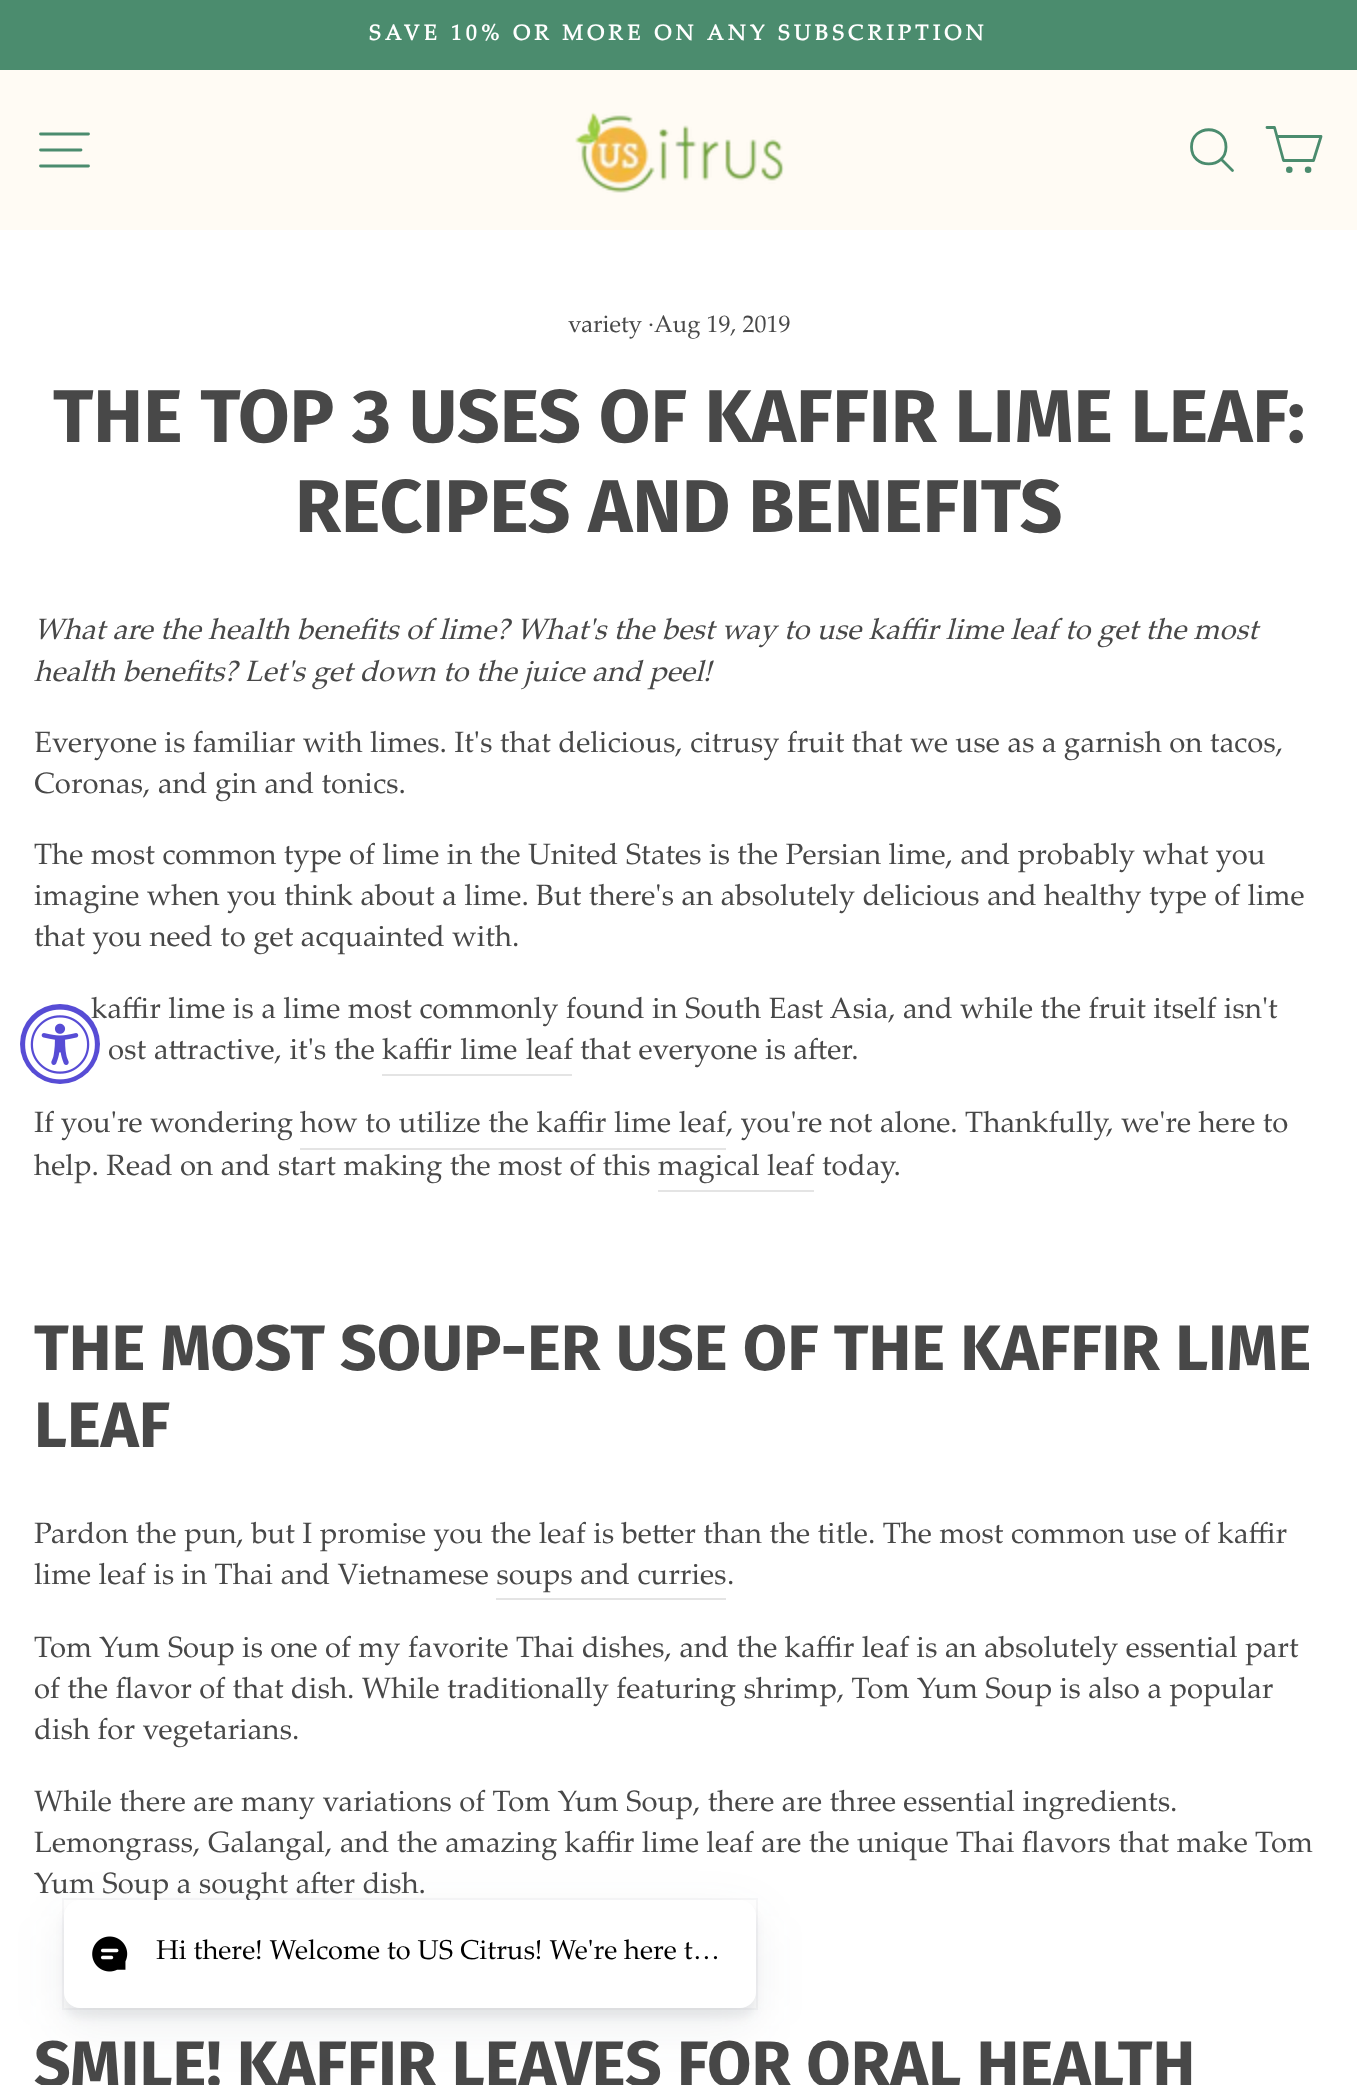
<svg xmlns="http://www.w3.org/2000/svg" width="1357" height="2085">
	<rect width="100%" height="100%" fill="#FFFFFF" />
	<rect x="0" y="0" width="1357" height="70" fill="#4B8C6E" />
	<text x="369" y="40" font-family="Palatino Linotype" font-size="21.6" font-weight="700" letter-spacing="4.3" fill="#FFFFFF">SAVE 10% OR MORE ON ANY SUBSCRIPTION</text>
	<rect x="0" y="70" width="1357" height="160" fill="#FFFBF4" />
	<path d="M40.5 134H88.5M40.5 150H81M40.5 166H88.5" fill="none" stroke="#4B8C6E" stroke-width="2.8" stroke-linecap="round" stroke-linejoin="round" />
	<image x="575" y="112" width="209" height="81" href="assets/img1.png" />
	<path d="M1226 147C1226 169.5 1191.5 169.5 1191.5 147C1191.5 124 1226 124 1226 147ZM1232.5 170.5L1221.5 159.5" fill="none" stroke="#4B8C6E" stroke-width="2.8" stroke-linecap="round" stroke-linejoin="round" />
	<path d="M1277 136.5H1321L1313.5 160.5H1283.5L1274.5 127.5H1267" fill="none" stroke="#4B8C6E" stroke-width="2.8" stroke-linecap="round" stroke-linejoin="round" />
	<circle cx="1289.3" cy="169.7" r="1.9" fill="#4B8C6E" stroke="#4B8C6E" stroke-width="2.8" />
	<circle cx="1308.1" cy="169.7" r="1.9" fill="#4B8C6E" stroke="#4B8C6E" stroke-width="2.8" />
	<text x="568" y="332" font-family="Palatino Linotype" font-size="24" fill="#484848">variety ·Aug 19, 2019</text>
	<g font-family="Fira Sans" font-size="74.75" font-weight="700" fill="#484848">
		<text x="53" y="442">THE TOP 3 USES OF KAFFIR LIME LEAF:</text>
		<text x="295" y="532">RECIPES AND BENEFITS</text>
	</g>
	<g font-family="Palatino Linotype" font-size="29.45" font-style="italic" fill="#484848">
		<text x="34" y="639">What are the health benefits of lime? What's the best way to use kaffir lime leaf to get the most</text>
		<text x="34" y="681">health benefits? Let's get down to the juice and peel!</text>
	</g>
	<g font-family="Palatino Linotype" font-size="29.45" fill="#484848">
		<text x="34" y="752">Everyone is familiar with limes. It's that delicious, citrusy fruit that we use as a garnish on tacos,</text>
		<text x="34" y="793">Coronas, and gin and tonics.</text>
		<text x="34" y="864">The most common type of lime in the United States is the Persian lime, and probably what you</text>
		<text x="34" y="905">imagine when you think about a lime. But there's an absolutely delicious and healthy type of lime</text>
		<text x="34" y="946">that you need to get acquainted with.</text>
		<text x="91" y="1018">kaffir lime is a lime most commonly found in South East Asia, and while the fruit itself isn't</text>
		<text x="108" y="1059" word-spacing="0.25">ost attractive, it's the</text>
	</g>
	<rect x="382" y="1074" width="190" height="2" fill="#E4E4E4" />
	<g font-family="Palatino Linotype" font-size="29.45" fill="#484848">
		<text x="382" y="1059" word-spacing="1">kaffir lime leaf</text>
		<text x="580" y="1059">that everyone is after.</text>
		<text x="34" y="1132">If you're wondering</text>
	</g>
	<rect x="300" y="1148" width="426" height="2" fill="#E4E4E4" />
	<g font-family="Palatino Linotype" font-size="29.45" fill="#484848">
		<text x="726" y="1132">, you're not alone. Thankfully, we're here to</text>
		<text x="300" y="1132" word-spacing="0.25">how to utilize the kaffir lime leaf</text>
		<text x="34" y="1175">help. Read on and start making the most of this magical leaf</text>
		<text x="822" y="1175">today.</text>
	</g>
	<rect x="658" y="1190" width="156" height="2" fill="#E4E4E4" />
	<g font-family="Fira Sans" font-size="64.25" font-weight="700" fill="#484848">
		<text x="34" y="1370">THE MOST SOUP-ER USE OF THE KAFFIR LIME</text>
		<text x="34" y="1447">LEAF</text>
	</g>
	<g font-family="Palatino Linotype" font-size="29.45" fill="#484848">
		<text x="34" y="1543">Pardon the pun, but I promise you the leaf is better than the title. The most common use of kaffir</text>
		<text x="34" y="1584">lime leaf is in Thai and Vietnamese soups and curries</text>
		<text x="727" y="1584">.</text>
	</g>
	<rect x="496" y="1598" width="230" height="2" fill="#E4E4E4" />
	<g font-family="Palatino Linotype" font-size="29.45" fill="#484848">
		<text x="34" y="1657">Tom Yum Soup is one of my favorite Thai dishes, and the kaffir leaf is an absolutely essential part</text>
		<text x="34" y="1698">of the flavor of that dish. While traditionally featuring shrimp, Tom Yum Soup is also a popular</text>
		<text x="34" y="1739">dish for vegetarians.</text>
		<text x="34" y="1811">While there are many variations of Tom Yum Soup, there are three essential ingredients.</text>
		<text x="34" y="1852">Lemongrass, Galangal, and the amazing kaffir lime leaf are the unique Thai flavors that make Tom</text>
		<text x="34" y="1893">Yum Soup a sought after dish.</text>
	</g>
	<text x="34" y="2086" font-family="Fira Sans" font-size="64.25" font-weight="700" fill="#484848">SMILE! KAFFIR LEAVES FOR ORAL HEALTH</text>
	<circle cx="60" cy="1044" r="40" fill="#574CD5" />
	<image x="25" y="1009" width="70" height="71" href="assets/img2.png" />
	<rect x="64" y="1916" width="692" height="110" rx="16" fill="#373F47" fill-opacity="0.08" filter="blur(25px)" />
	<rect x="64" y="1908" width="692" height="110" rx="16" fill="#373F47" fill-opacity="0.08" filter="blur(4px)" />
	<rect x="63" y="1899" width="694" height="110" fill="none" stroke="#373F47" stroke-opacity="0.04" stroke-width="2" />
	<rect x="64" y="1900" width="692" height="108" rx="16" fill="#FFFFFF" />
	<image x="92" y="1936" width="36" height="36" href="assets/img3.png" />
	<text x="156" y="1959" font-family="Palatino Linotype" font-size="27.3" fill="#000000">Hi there! Welcome to US Citrus! We're here t…</text>
</svg>
